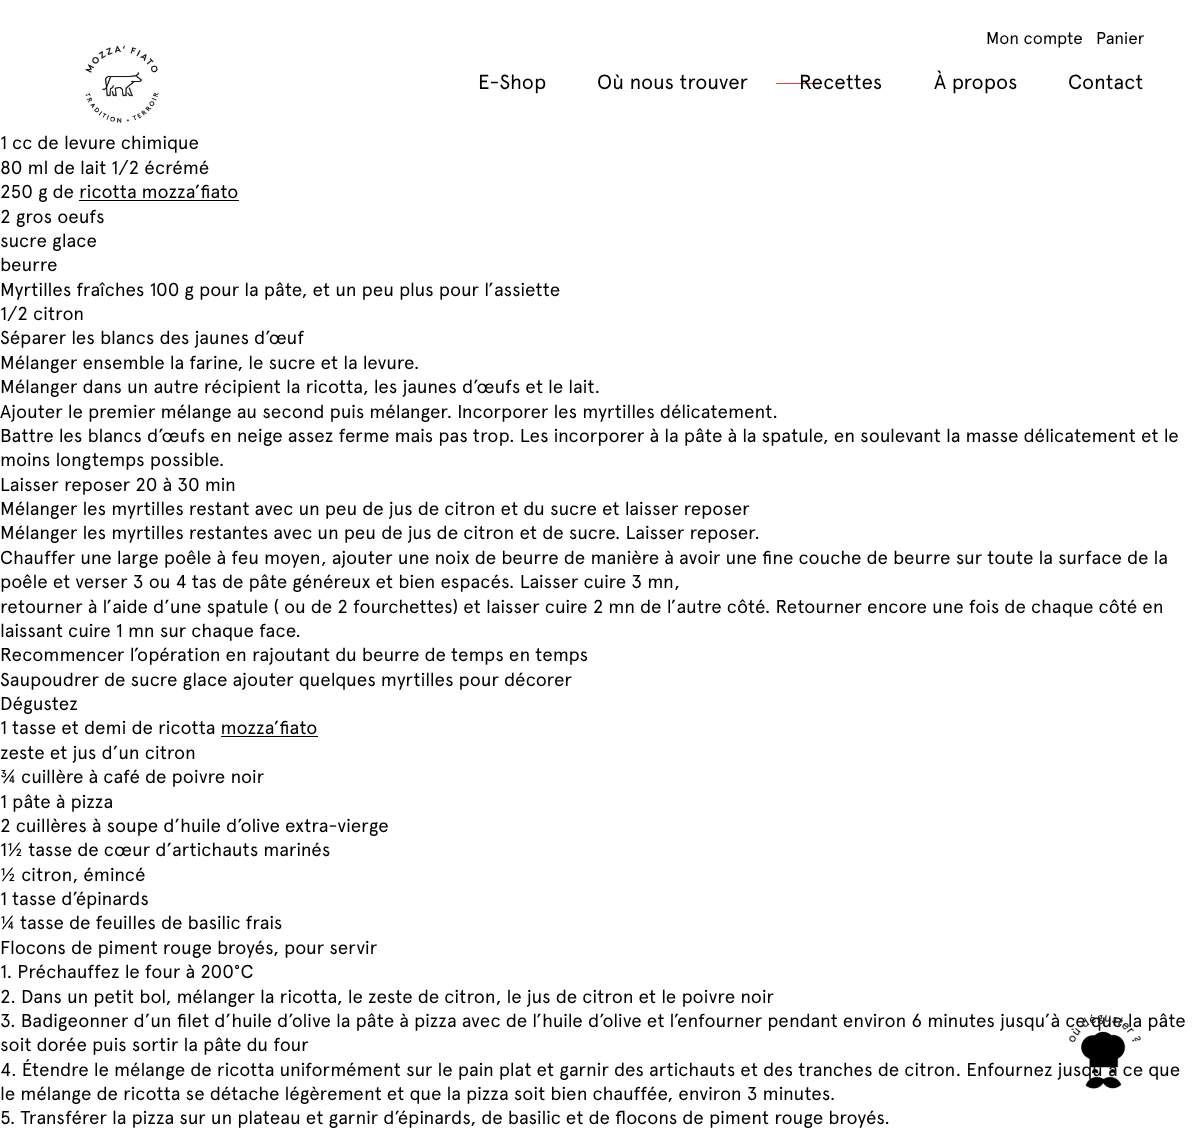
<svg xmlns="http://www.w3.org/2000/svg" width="1200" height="1146">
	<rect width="100%" height="100%" fill="#FFFFFF" />
	<image x="85" y="45" width="74" height="78" href="assets/img1.png" />
	<g font-family="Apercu" font-size="17" fill="#000000">
		<text x="986" y="44">Mon compte</text>
		<text x="1096" y="44">Panier</text>
	</g>
	<g font-family="Apercu" font-size="20.5" fill="#000000">
		<text x="478" y="89">E-Shop</text>
		<text x="597" y="89">Où nous trouver</text>
	</g>
	<rect x="776" y="83" width="38" height="1" fill="#EE3F3F" />
	<g font-family="Apercu" font-size="20.5" fill="#000000">
		<text x="799" y="89">Recettes</text>
		<text x="934" y="89">À propos</text>
		<text x="1068" y="89">Contact</text>
	</g>
	<g font-family="Apercu" font-size="18.75" fill="#000000">
		<text x="0" y="149">1 cc de levure chimique</text>
		<text x="0" y="174">80 ml de lait 1/2 écrémé</text>
		<text x="0" y="198">250 g de ricotta mozza’fiato</text>
	</g>
	<rect x="79" y="200" width="160" height="1" fill="#000000" />
	<g font-family="Apercu" font-size="18.75" fill="#000000">
		<text x="0" y="223">2 gros oeufs</text>
		<text x="0" y="247">sucre glace</text>
		<text x="0" y="271">beurre</text>
		<text x="0" y="296">Myrtilles fraîches 100 g pour la pâte, et un peu plus pour l’assiette</text>
		<text x="0" y="320">1/2 citron</text>
		<text x="0" y="344">Séparer les blancs des jaunes d’œuf</text>
		<text x="0" y="369">Mélanger ensemble la farine, le sucre et la levure.</text>
		<text x="0" y="393">Mélanger dans un autre récipient la ricotta, les jaunes d’œufs et le lait.</text>
		<text x="0" y="418">Ajouter le premier mélange au second puis mélanger. Incorporer les myrtilles délicatement.</text>
		<text x="0" y="442">Battre les blancs d’œufs en neige assez ferme mais pas trop. Les incorporer à la pâte à la spatule, en soulevant la masse délicatement et le</text>
		<text x="0" y="466">moins longtemps possible.</text>
		<text x="0" y="491">Laisser reposer 20 à 30 min</text>
		<text x="0" y="515">Mélanger les myrtilles restant avec un peu de jus de citron et du sucre et laisser reposer</text>
		<text x="0" y="539">Mélanger les myrtilles restantes avec un peu de jus de citron et de sucre. Laisser reposer.</text>
		<text x="0" y="564">Chauffer une large poêle à feu moyen, ajouter une noix de beurre de manière à avoir une fine couche de beurre sur toute la surface de la</text>
		<text x="0" y="588">poêle et verser 3 ou 4 tas de pâte généreux et bien espacés. Laisser cuire 3 mn,</text>
		<text x="0" y="613">retourner à l’aide d’une spatule ( ou de 2 fourchettes) et laisser cuire 2 mn de l’autre côté. Retourner encore une fois de chaque côté en</text>
		<text x="0" y="637">laissant cuire 1 mn sur chaque face.</text>
		<text x="0" y="661">Recommencer l’opération en rajoutant du beurre de temps en temps</text>
		<text x="0" y="686">Saupoudrer de sucre glace ajouter quelques myrtilles pour décorer</text>
		<text x="0" y="710">Dégustez</text>
		<text x="0" y="734">1 tasse et demi de ricotta mozza’fiato</text>
	</g>
	<rect x="221" y="736" width="97" height="1" fill="#000000" />
	<g font-family="Apercu" font-size="18.75" fill="#000000">
		<text x="0" y="759">zeste et jus d’un citron</text>
		<text x="0" y="783">¾ cuillère à café de poivre noir</text>
		<text x="0" y="808">1 pâte à pizza</text>
		<text x="0" y="832">2 cuillères à soupe d’huile d’olive extra-vierge</text>
		<text x="0" y="856">1½ tasse de cœur d’artichauts marinés</text>
		<text x="0" y="881">½ citron, émincé</text>
		<text x="0" y="905">1 tasse d’épinards</text>
		<text x="0" y="929">¼ tasse de feuilles de basilic frais</text>
		<text x="0" y="954">Flocons de piment rouge broyés, pour servir</text>
		<text x="0" y="978">1. Préchauffez le four à 200°C</text>
		<text x="0" y="1003">2. Dans un petit bol, mélanger la ricotta, le zeste de citron, le jus de citron et le poivre noir</text>
		<text x="0" y="1027">3. Badigeonner d’un filet d’huile d’olive la pâte à pizza avec de l’huile d’olive et l’enfourner pendant environ 6 minutes jusqu’à ce que la pâte</text>
		<text x="0" y="1051">soit dorée puis sortir la pâte du four</text>
		<text x="0" y="1076">4. Étendre le mélange de ricotta uniformément sur le pain plat et garnir des artichauts et des tranches de citron. Enfournez jusqu’à ce que</text>
	</g>
	<image x="1069" y="1014" width="72" height="75" href="assets/img2.png" />
	<g font-family="Apercu" font-size="18.75" fill="#000000">
		<text x="0" y="1100">le mélange de ricotta se détache légèrement et que la pizza soit bien chauffée, environ 3 minutes.</text>
		<text x="0" y="1124">5. Transférer la pizza sur un plateau et garnir d’épinards, de basilic et de flocons de piment rouge broyés.</text>
	</g>
</svg>
